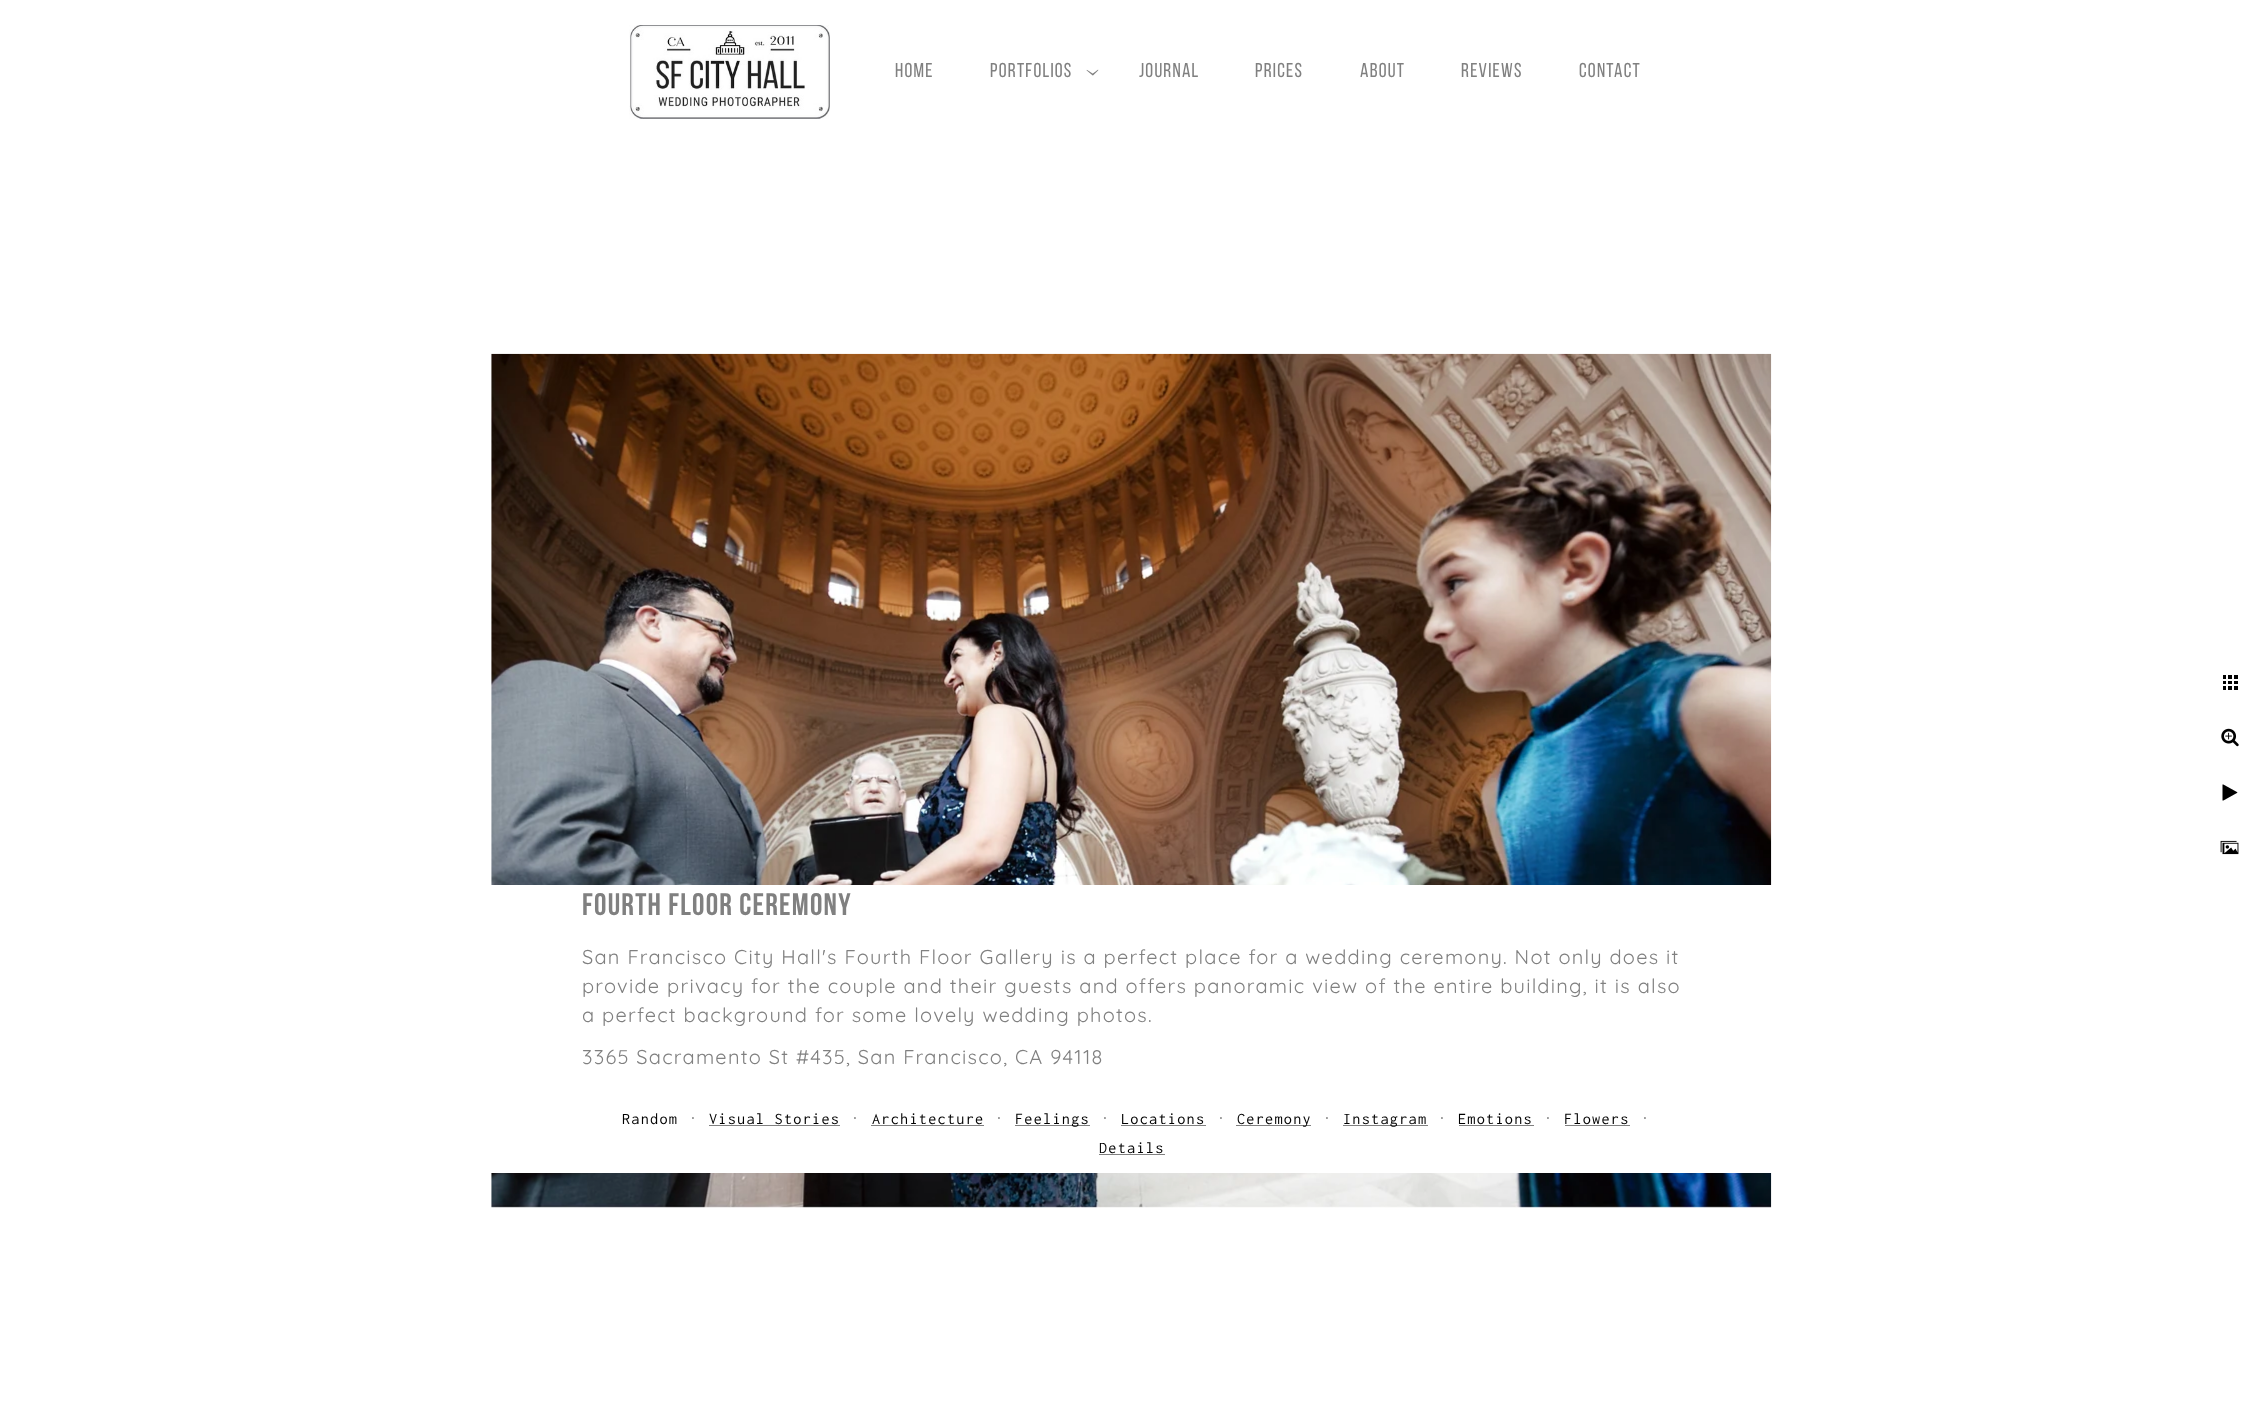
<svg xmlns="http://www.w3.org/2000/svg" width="2263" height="1416">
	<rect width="100%" height="100%" fill="#FFFFFF" />
	<image x="629" y="25" width="201" height="94" href="assets/img1.png" />
	<g font-family="Bebas Neue" font-size="20" letter-spacing="1.25" fill="#808080">
		<text x="895" y="77">Home</text>
		<text x="990" y="77">Portfolios</text>
	</g>
	<image x="1086" y="69" width="13" height="7" href="assets/img2.png" />
	<g font-family="Bebas Neue" font-size="20" letter-spacing="1.25" fill="#808080">
		<text x="1139" y="77">Journal</text>
		<text x="1255" y="77">Prices</text>
		<text x="1360" y="77">About</text>
		<text x="1461" y="77">Reviews</text>
		<text x="1579" y="77">Contact</text>
	</g>
	<image x="491" y="353" width="1281" height="855" href="assets/img3.png" />
	<image x="2223" y="675" width="15" height="15" href="assets/img4.png" />
	<image x="2221" y="728" width="18" height="19" href="assets/img5.png" />
	<image x="2222" y="784" width="16" height="17" href="assets/img6.png" />
	<image x="2220" y="840" width="19" height="15" href="assets/img7.png" />
	<rect x="491" y="885" width="1281" height="288" fill="#FFFFFF" />
	<text x="582" y="915" font-family="Bebas Neue" font-size="31.25" font-weight="700" letter-spacing="1.25" fill="#808080">Fourth Floor Ceremony</text>
	<g font-family="Quicksand" font-size="20" font-weight="300" letter-spacing="1.25" fill="#808080">
		<text x="582" y="964">San Francisco City Hall's Fourth Floor Gallery is a perfect place for a wedding ceremony. Not only does it</text>
		<text x="582" y="993">provide privacy for the couple and their guests and offers panoramic view of the entire building, it is also</text>
		<text x="582" y="1022">a perfect background for some lovely wedding photos.</text>
		<text x="582" y="1064">3365 Sacramento St #435, San Francisco, CA 94118</text>
	</g>
	<text x="622" y="1124" font-family="Inconsolata" font-size="16.25" letter-spacing="1.25" fill="#000000">Random</text>
	<text x="691" y="1124" font-family="Quicksand" font-size="20" font-weight="300" letter-spacing="1.25" fill="#808080">·</text>
	<text x="709" y="1124" font-family="Inconsolata" font-size="16.25" letter-spacing="1.25" fill="#000000">Visual Stories</text>
	<rect x="709" y="1125" width="131" height="1" fill="#808080" />
	<text x="853" y="1124" font-family="Quicksand" font-size="20" font-weight="300" letter-spacing="1.25" fill="#808080">·</text>
	<text x="872" y="1124" font-family="Inconsolata" font-size="16.25" letter-spacing="1.25" fill="#000000">Architecture</text>
	<rect x="871" y="1125" width="113" height="1" fill="#808080" />
	<text x="997" y="1124" font-family="Quicksand" font-size="20" font-weight="300" letter-spacing="1.25" fill="#808080">·</text>
	<rect x="1015" y="1125" width="75" height="1" fill="#808080" />
	<text x="1015" y="1124" font-family="Inconsolata" font-size="16.25" letter-spacing="1.25" fill="#000000">Feelings</text>
	<text x="1103" y="1124" font-family="Quicksand" font-size="20" font-weight="300" letter-spacing="1.25" fill="#808080">·</text>
	<text x="1121" y="1124" font-family="Inconsolata" font-size="16.25" letter-spacing="1.25" fill="#000000">Locations</text>
	<rect x="1121" y="1125" width="85" height="1" fill="#808080" />
	<text x="1219" y="1124" font-family="Quicksand" font-size="20" font-weight="300" letter-spacing="1.25" fill="#808080">·</text>
	<rect x="1236" y="1125" width="75" height="1" fill="#808080" />
	<text x="1237" y="1124" font-family="Inconsolata" font-size="16.25" letter-spacing="1.25" fill="#000000">Ceremony</text>
	<text x="1325" y="1124" font-family="Quicksand" font-size="20" font-weight="300" letter-spacing="1.25" fill="#808080">·</text>
	<rect x="1343" y="1125" width="85" height="1" fill="#808080" />
	<text x="1343" y="1124" font-family="Inconsolata" font-size="16.25" letter-spacing="1.25" fill="#000000">Instagram</text>
	<text x="1440" y="1124" font-family="Quicksand" font-size="20" font-weight="300" letter-spacing="1.25" fill="#808080">·</text>
	<text x="1458" y="1124" font-family="Inconsolata" font-size="16.25" letter-spacing="1.25" fill="#000000">Emotions</text>
	<rect x="1459" y="1125" width="75" height="1" fill="#808080" />
	<text x="1546" y="1124" font-family="Quicksand" font-size="20" font-weight="300" letter-spacing="1.25" fill="#808080">·</text>
	<text x="1564" y="1124" font-family="Inconsolata" font-size="16.25" letter-spacing="1.25" fill="#000000">Flowers</text>
	<rect x="1565" y="1125" width="65" height="1" fill="#808080" />
	<text x="1643" y="1124" font-family="Quicksand" font-size="20" font-weight="300" letter-spacing="1.25" fill="#808080">·</text>
	<text x="1099" y="1153" font-family="Inconsolata" font-size="16.25" letter-spacing="1.25" fill="#000000">Details</text>
	<rect x="1099" y="1154" width="66" height="1" fill="#808080" />
</svg>
